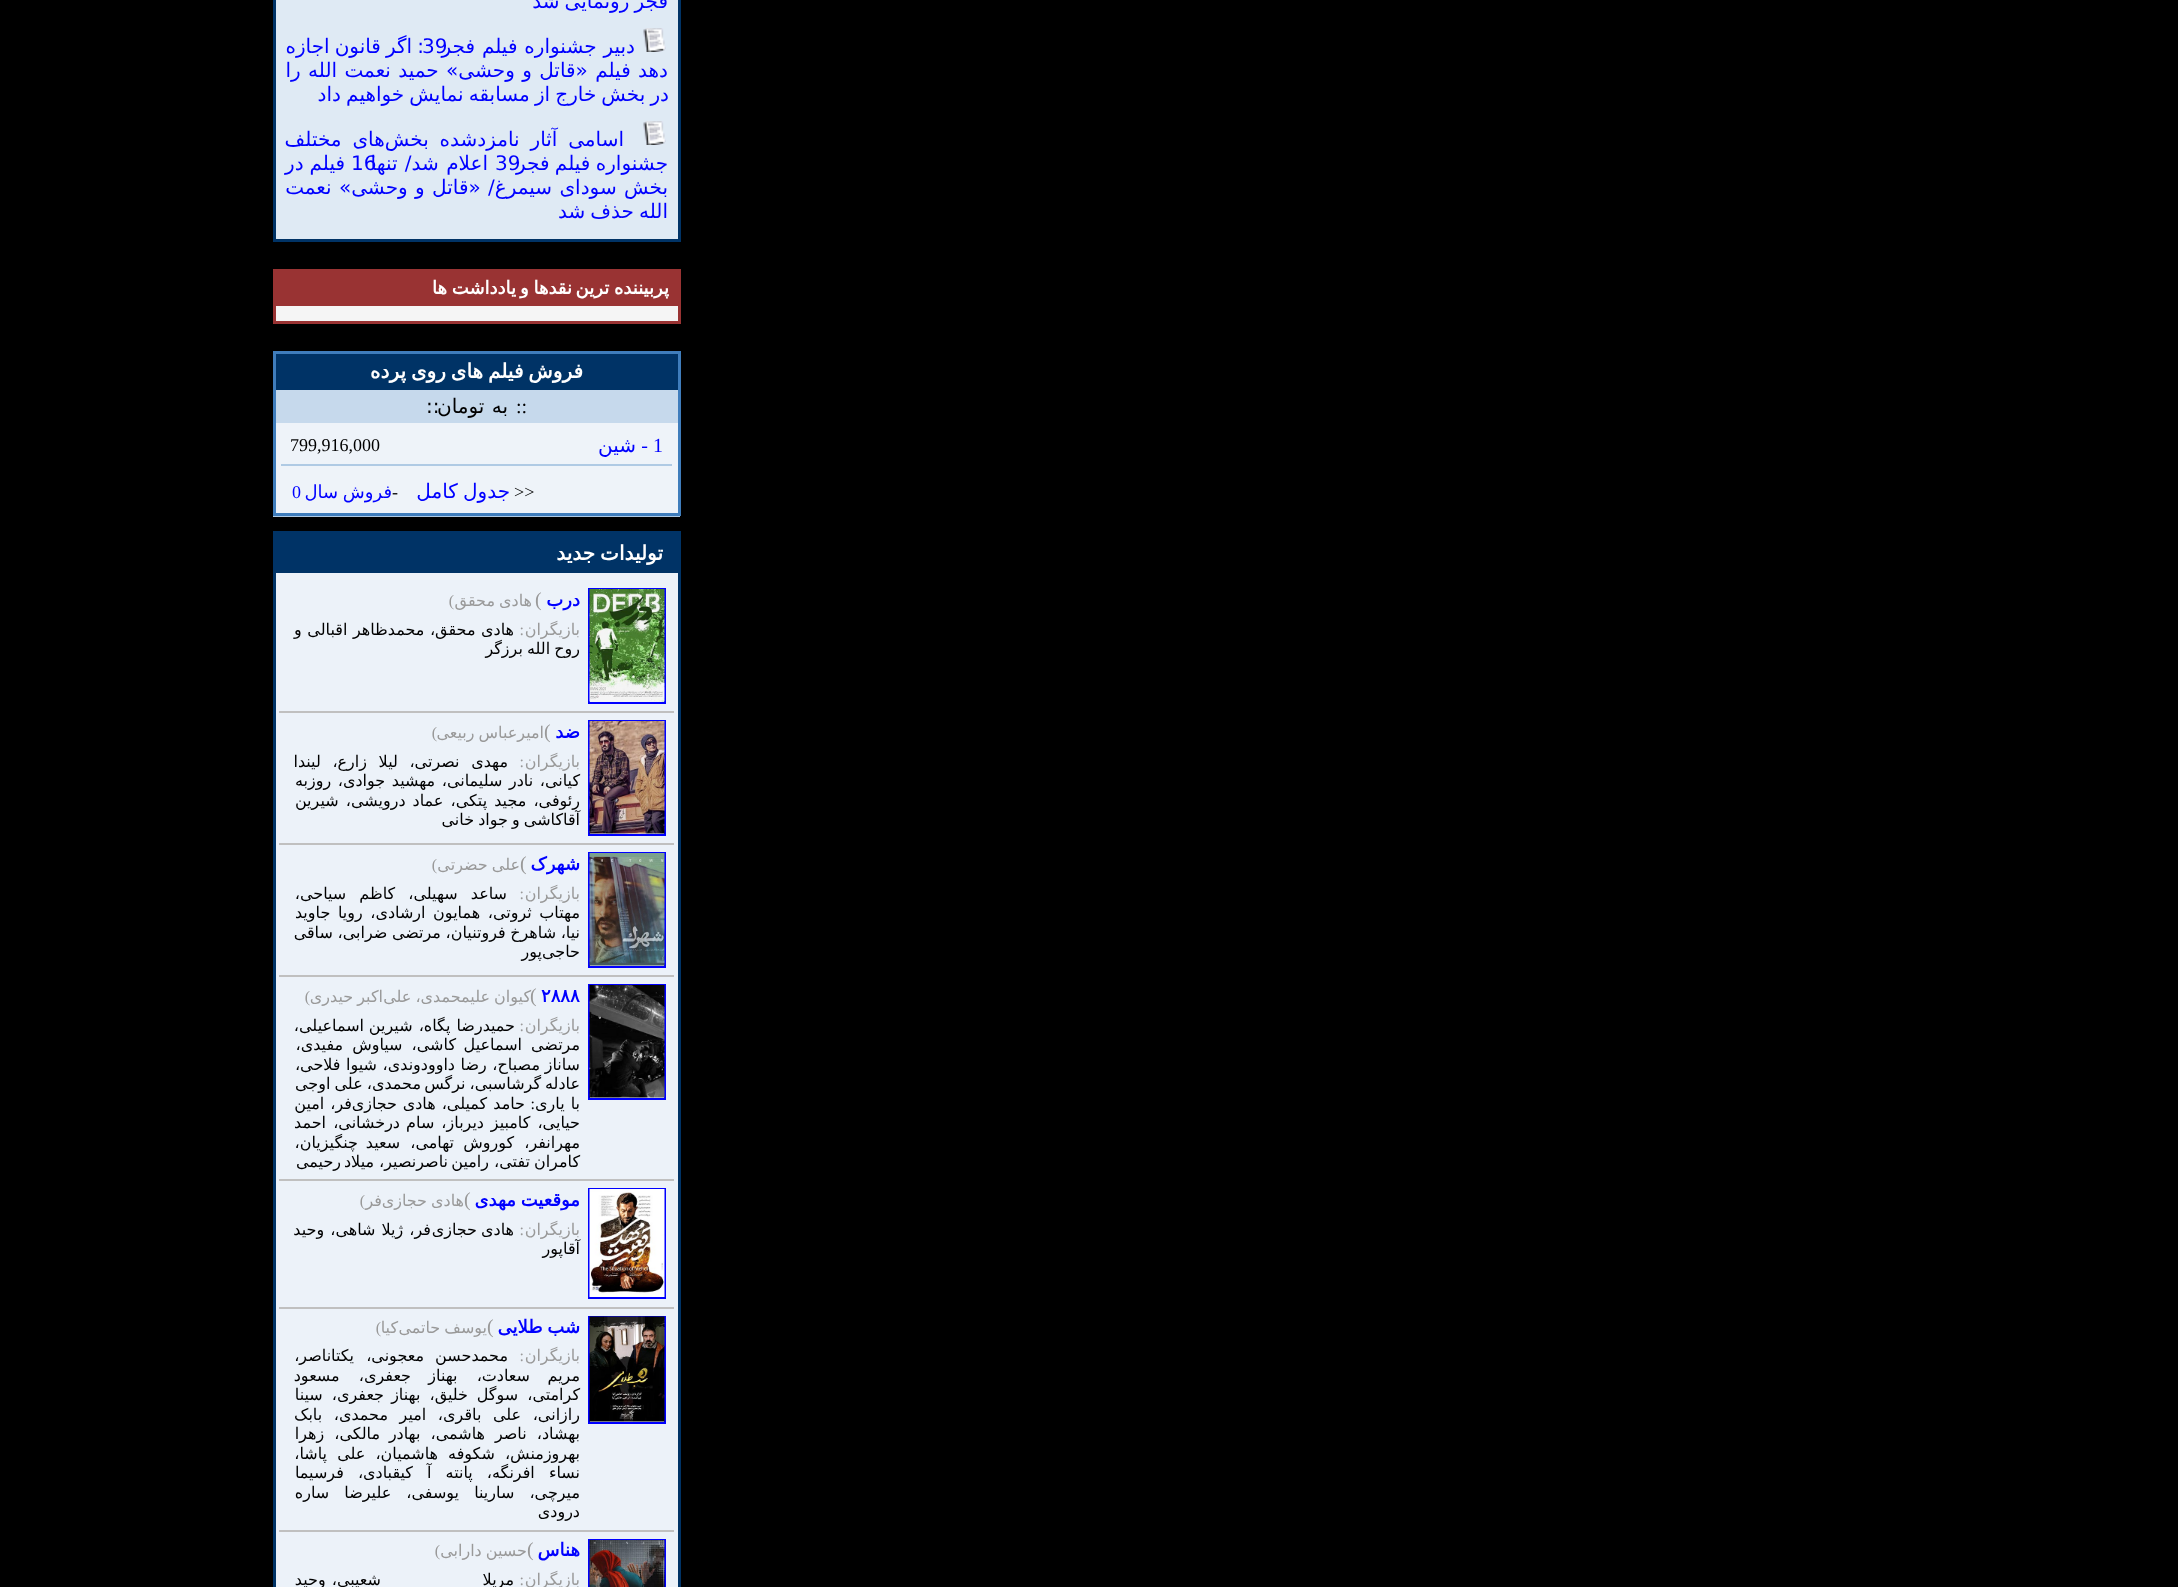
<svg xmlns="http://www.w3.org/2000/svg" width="2178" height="1587">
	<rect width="100%" height="100%" fill="#000000" />
	<rect x="678" y="0" width="3" height="242" fill="#003366" />
	<rect x="273" y="239" width="408" height="3" fill="#003366" />
	<rect x="273" y="0" width="3" height="242" fill="#003366" />
	<rect x="276" y="0" width="402" height="239" fill="#DFEAF4" />
	<text x="668" y="8" word-spacing="-1.25" font-family="DejaVu Sans" font-size="20" direction="rtl" fill="#0000FF">فجر رونمایی شد</text>
	<image x="643" y="28" width="23" height="24" href="assets/img1.png" />
	<text x="424" y="53" word-spacing="-1.25" font-family="DejaVu Sans" font-size="20" direction="rtl" fill="#0000FF">: اگر قانون اجازه</text>
	<text x="422" y="53" font-family="DejaVu Sans" font-size="20" fill="#0000FF">39</text>
	<g font-family="DejaVu Sans" font-size="20" direction="rtl" fill="#0000FF">
		<text x="635" y="53" word-spacing="0.5">دبیر جشنواره فیلم فجر</text>
		<text x="668" y="77" word-spacing="1">دهد فیلم «قاتل و وحشی» حمید نعمت الله را</text>
		<text x="669" y="101" word-spacing="-1.25">در بخش خارج از مسابقه نمایش خواهیم داد</text>
	</g>
	<image x="643" y="121" width="23" height="24" href="assets/img1.png" />
	<text x="624" y="146" word-spacing="4.5" font-family="DejaVu Sans" font-size="20" direction="rtl" fill="#0000FF">اسامی آثار نامزدشده بخش‌های مختلف</text>
	<text x="495" y="170" font-family="DejaVu Sans" font-size="20" fill="#0000FF">39</text>
	<text x="668" y="170" word-spacing="-1" font-family="DejaVu Sans" font-size="20" direction="rtl" fill="#0000FF">جشنواره فیلم فجر</text>
	<text x="351" y="170" font-family="DejaVu Sans" font-size="20" fill="#0000FF">16</text>
	<g font-family="DejaVu Sans" font-size="20" direction="rtl" fill="#0000FF">
		<text x="488" y="170" word-spacing="1">اعلام شد/ تنها</text>
		<text x="345" y="170" word-spacing="-0.5">فیلم در</text>
		<text x="668" y="194" word-spacing="1">بخش سودای سیمرغ/ «قاتل و وحشی» نعمت</text>
		<text x="668" y="218" word-spacing="-1.25">الله حذف شد</text>
	</g>
	<rect x="273" y="269" width="408" height="3" fill="#993333" />
	<rect x="678" y="269" width="3" height="55" fill="#993333" />
	<rect x="273" y="321" width="408" height="3" fill="#993333" />
	<rect x="273" y="269" width="3" height="55" fill="#993333" />
	<rect x="276" y="272" width="402" height="34" fill="#993333" />
	<g font-family="DejaVu Sans" font-size="18" font-weight="700" direction="rtl" fill="#FFFFFF">
		<text x="669" y="294" word-spacing="-1">پربیننده ترین</text>
		<text x="572" y="294" word-spacing="-1">نقدها و</text>
		<text x="516" y="294" word-spacing="-1">یادداشت ها</text>
	</g>
	<rect x="276" y="306" width="402" height="15" fill="#F5F5F5" />
	<rect x="273" y="351" width="408" height="3" fill="#3F7DBC" />
	<rect x="678" y="351" width="3" height="165" fill="#3F7DBC" />
	<rect x="273" y="513" width="408" height="3" fill="#3F7DBC" />
	<rect x="273" y="351" width="3" height="165" fill="#3F7DBC" />
	<rect x="276" y="354" width="402" height="36" fill="#003366" />
	<text x="583" y="378" word-spacing="-1.5" font-family="DejaVu Sans" font-size="20" font-weight="700" direction="rtl" fill="#FFFFFF">فروش فیلم های روی پرده</text>
	<rect x="276" y="390" width="402" height="33" fill="#C6D9EC" />
	<text x="516" y="413" font-family="Liberation Serif" font-size="20" fill="#000000">::</text>
	<text x="508" y="413" word-spacing="1" font-family="DejaVu Sans" font-size="20" direction="rtl" fill="#000000">به تومان</text>
	<text x="426" y="413" font-family="DejaVu Sans" font-size="20" fill="#000000">::</text>
	<rect x="276" y="423" width="402" height="90" fill="#EEF3F9" />
	<rect x="273" y="516" width="407" height="1" fill="#AFCAE4" />
	<text x="653" y="452" font-family="Liberation Serif" font-size="20" fill="#0000FF">1</text>
	<text x="648" y="452" font-family="Liberation Serif" font-size="20" direction="rtl" fill="#0000FF">-</text>
	<text x="636" y="452" font-family="DejaVu Sans" font-size="20" direction="rtl" fill="#0000FF">شین</text>
	<rect x="281" y="464" width="391" height="2" fill="#AFCAE4" />
	<g font-family="Liberation Serif" font-size="18" fill="#000000">
		<text x="290" y="451">799,916,000</text>
		<text x="514" y="498">&gt;&gt;</text>
	</g>
	<text x="510" y="498" word-spacing="-1.25" font-family="DejaVu Sans" font-size="20" direction="rtl" fill="#0000FF">جدول کامل</text>
	<text x="392" y="498" font-family="Liberation Serif" font-size="18" fill="#000000">-</text>
	<text x="392" y="498" word-spacing="-1" font-family="DejaVu Sans" font-size="18" direction="rtl" fill="#0000FF">فروش سال</text>
	<text x="292" y="498" font-family="Liberation Serif" font-size="18" fill="#0000FF">0</text>
	<rect x="273" y="531" width="408" height="3" fill="#003366" />
	<rect x="678" y="531" width="3" height="1056" fill="#003366" />
	<rect x="273" y="531" width="3" height="1056" fill="#003366" />
	<rect x="276" y="534" width="402" height="39" fill="#003366" />
	<text x="663" y="560" word-spacing="-1.5" font-family="DejaVu Sans" font-size="20" font-weight="700" direction="rtl" fill="#FFFFFF">تولیدات جدید</text>
	<rect x="276" y="573" width="402" height="1014" fill="#ECF2F9" />
	<rect x="279" y="711" width="395" height="2" fill="#C0C0C0" />
	<rect x="589" y="589" width="76" height="114" fill="none" stroke="#0000FF" stroke-width="2" />
	<image x="589" y="589" width="76" height="113" href="assets/img2.png" />
	<text x="580" y="606" font-family="DejaVu Sans" font-size="18" font-weight="700" direction="rtl" fill="#0000FF">درب</text>
	<text x="535" y="606" font-family="Liberation Serif" font-size="20" fill="#999999">(</text>
	<text x="532" y="606" word-spacing="-1" font-family="DejaVu Sans" font-size="16" direction="rtl" fill="#999999">هادی محقق</text>
	<text x="454" y="606" font-family="Liberation Serif" font-size="16" direction="rtl" fill="#999999">)</text>
	<text x="580" y="635" font-family="DejaVu Sans" font-size="16" direction="rtl" fill="#999999">بازیگران</text>
	<text x="524" y="635" font-family="Liberation Serif" font-size="16" direction="rtl" fill="#999999">:</text>
	<g font-family="DejaVu Sans" font-size="16" direction="rtl" fill="#000000">
		<text x="514" y="635" word-spacing="0.5">هادی محقق، محمدظاهر اقبالی و</text>
		<text x="580" y="654" word-spacing="-1">روح الله برزگر</text>
	</g>
	<rect x="279" y="843" width="395" height="2" fill="#C0C0C0" />
	<rect x="589" y="721" width="76" height="114" fill="none" stroke="#0000FF" stroke-width="2" />
	<image x="589" y="721" width="76" height="113" href="assets/img3.png" />
	<text x="580" y="738" font-family="DejaVu Sans" font-size="18" font-weight="700" direction="rtl" fill="#0000FF">ضد</text>
	<text x="544" y="738" font-family="Liberation Serif" font-size="20" fill="#999999">(</text>
	<text x="544" y="738" word-spacing="-1" font-family="DejaVu Sans" font-size="16" direction="rtl" fill="#999999">امیرعباس ربیعی</text>
	<text x="437" y="738" font-family="Liberation Serif" font-size="16" direction="rtl" fill="#999999">)</text>
	<text x="580" y="767" font-family="DejaVu Sans" font-size="16" direction="rtl" fill="#999999">بازیگران</text>
	<text x="524" y="767" font-family="Liberation Serif" font-size="16" direction="rtl" fill="#999999">:</text>
	<g font-family="DejaVu Sans" font-size="16" direction="rtl" fill="#000000">
		<text x="508" y="767" word-spacing="6.5">مهدی نصرتی، لیلا زارع، لیندا</text>
		<text x="580" y="786" word-spacing="1.5">کیانی، نادر سلیمانی، مهشید جوادی، روزبه</text>
		<text x="580" y="806" word-spacing="2">رئوفی، مجید پتکی، عماد درویشی، شیرین</text>
		<text x="580" y="825" word-spacing="-1">آقاکاشی و جواد خانی</text>
	</g>
	<rect x="279" y="975" width="395" height="2" fill="#C0C0C0" />
	<rect x="589" y="853" width="76" height="114" fill="none" stroke="#0000FF" stroke-width="2" />
	<image x="589" y="853" width="76" height="113" href="assets/img4.png" />
	<text x="580" y="870" font-family="DejaVu Sans" font-size="18" font-weight="700" direction="rtl" fill="#0000FF">شهرک</text>
	<text x="520" y="870" font-family="Liberation Serif" font-size="20" fill="#999999">(</text>
	<text x="520" y="870" word-spacing="-1" font-family="DejaVu Sans" font-size="16" direction="rtl" fill="#999999">علی حضرتی</text>
	<text x="437" y="870" font-family="Liberation Serif" font-size="16" direction="rtl" fill="#999999">)</text>
	<text x="580" y="899" font-family="DejaVu Sans" font-size="16" direction="rtl" fill="#999999">بازیگران</text>
	<text x="524" y="899" font-family="Liberation Serif" font-size="16" direction="rtl" fill="#999999">:</text>
	<g font-family="DejaVu Sans" font-size="16" direction="rtl" fill="#000000">
		<text x="507" y="899" word-spacing="8">ساعد سهیلی، کاظم سیاحی،</text>
		<text x="580" y="918" word-spacing="2.5">مهتاب ثروتی، همایون ارشادی، رویا جاوید</text>
		<text x="580" y="938" word-spacing="-0.5">نیا، شاهرخ فروتنیان، مرتضی ضرابی، ساقی</text>
		<text x="580" y="957">حاجی</text>
		<text x="542" y="957">پور</text>
	</g>
	<rect x="279" y="1179" width="395" height="2" fill="#C0C0C0" />
	<rect x="589" y="985" width="76" height="114" fill="none" stroke="#0000FF" stroke-width="2" />
	<image x="589" y="985" width="76" height="113" href="assets/img5.png" />
	<text x="541" y="1002" font-family="DejaVu Sans" font-size="18" font-weight="700" fill="#0000FF">۲۸۸۸</text>
	<text x="530" y="1002" font-family="Liberation Serif" font-size="20" fill="#999999">(</text>
	<g font-family="DejaVu Sans" font-size="16" direction="rtl" fill="#999999">
		<text x="531" y="1002" word-spacing="-1">کیوان علیمحمدی، علی</text>
		<text x="383" y="1002" word-spacing="-1">اکبر حیدری</text>
	</g>
	<text x="310" y="1002" font-family="Liberation Serif" font-size="16" direction="rtl" fill="#999999">)</text>
	<text x="580" y="1031" font-family="DejaVu Sans" font-size="16" direction="rtl" fill="#999999">بازیگران</text>
	<text x="524" y="1031" font-family="Liberation Serif" font-size="16" direction="rtl" fill="#999999">:</text>
	<g font-family="DejaVu Sans" font-size="16" direction="rtl" fill="#000000">
		<text x="515" y="1031" word-spacing="1">حمیدرضا پگاه، شیرین</text>
		<text x="364" y="1031">اسماعیلی،</text>
		<text x="580" y="1050">مرتضی</text>
		<text x="522" y="1050">اسماعیل</text>
		<text x="456" y="1050" word-spacing="4">کاشی، سیاوش مفیدی،</text>
		<text x="580" y="1070">ساناز</text>
		<text x="540" y="1070" word-spacing="0.5">مصباح، رضا داوودوندی، شیوا فلاحی،</text>
		<text x="580" y="1089">عادله</text>
		<text x="541" y="1089" word-spacing="-1">گرشاسبی، نرگس</text>
		<text x="421" y="1089" word-spacing="-1">محمدی، علی اوجی</text>
		<text x="580" y="1109" word-spacing="1">با یاری</text>
	</g>
	<text x="535" y="1109" font-family="Liberation Serif" font-size="16" direction="rtl" fill="#000000">:</text>
	<g font-family="DejaVu Sans" font-size="16" direction="rtl" fill="#000000">
		<text x="525" y="1109" word-spacing="1">حامد کمیلی، هادی</text>
		<text x="397" y="1109">حجازی</text>
		<text x="352" y="1109" word-spacing="1">فر، امین</text>
		<text x="580" y="1128" word-spacing="2">حیایی، کامبیز</text>
		<text x="484" y="1128" word-spacing="2">دیرباز، سام</text>
		<text x="400" y="1128" word-spacing="2">درخشانی، احمد</text>
		<text x="580" y="1148" word-spacing="5">مهرانفر، کوروش</text>
		<text x="454" y="1148" word-spacing="5">تهامی، سعید</text>
		<text x="358" y="1148">چنگیزیان،</text>
		<text x="580" y="1167">کامران</text>
		<text x="530" y="1167">تفتی، رامین</text>
		<text x="448" y="1167">ناصرنصیر، میلاد</text>
		<text x="341" y="1167">رحیمی</text>
	</g>
	<rect x="279" y="1307" width="395" height="2" fill="#C0C0C0" />
	<rect x="589" y="1189" width="76" height="109" fill="none" stroke="#0000FF" stroke-width="2" />
	<image x="589" y="1189" width="76" height="108" href="assets/img6.png" />
	<text x="580" y="1206" word-spacing="-1" font-family="DejaVu Sans" font-size="18" font-weight="700" direction="rtl" fill="#0000FF">موقعیت مهدی</text>
	<text x="464" y="1206" font-family="Liberation Serif" font-size="20" fill="#999999">(</text>
	<g font-family="DejaVu Sans" font-size="16" direction="rtl" fill="#999999">
		<text x="464" y="1206">هادی</text>
		<text x="427" y="1206">حجازی</text>
	</g>
	<text x="365" y="1206" font-family="Liberation Serif" font-size="16" direction="rtl" fill="#999999">)</text>
	<g font-family="DejaVu Sans" font-size="16" direction="rtl" fill="#999999">
		<text x="382" y="1206">فر</text>
		<text x="580" y="1235">بازیگران</text>
	</g>
	<text x="524" y="1235" font-family="Liberation Serif" font-size="16" direction="rtl" fill="#999999">:</text>
	<g font-family="DejaVu Sans" font-size="16" direction="rtl" fill="#000000">
		<text x="514" y="1235">هادی</text>
		<text x="477" y="1235">حجازی</text>
		<text x="431" y="1235" word-spacing="1">فر، ژیلا شاهی، وحید</text>
		<text x="580" y="1254">آقاپور</text>
	</g>
	<rect x="279" y="1530" width="395" height="2" fill="#C0C0C0" />
	<rect x="589" y="1317" width="76" height="106" fill="none" stroke="#0000FF" stroke-width="2" />
	<image x="589" y="1316" width="76" height="106" href="assets/img7.png" />
	<text x="580" y="1333" word-spacing="-1" font-family="DejaVu Sans" font-size="18" font-weight="700" direction="rtl" fill="#0000FF">شب طلایی</text>
	<text x="487" y="1333" font-family="Liberation Serif" font-size="20" fill="#999999">(</text>
	<g font-family="DejaVu Sans" font-size="16" direction="rtl" fill="#999999">
		<text x="487" y="1333" word-spacing="-1">یوسف حاتمی</text>
		<text x="398" y="1333">کیا</text>
	</g>
	<text x="381" y="1333" font-family="Liberation Serif" font-size="16" direction="rtl" fill="#999999">)</text>
	<text x="580" y="1361" font-family="DejaVu Sans" font-size="16" direction="rtl" fill="#999999">بازیگران</text>
	<text x="524" y="1361" font-family="Liberation Serif" font-size="16" direction="rtl" fill="#999999">:</text>
	<g font-family="DejaVu Sans" font-size="16" direction="rtl" fill="#000000">
		<text x="508" y="1361">محمدحسن</text>
		<text x="424" y="1361" word-spacing="7">معجونی، یکتاناصر،</text>
		<text x="580" y="1381">مریم</text>
		<text x="530" y="1381" word-spacing="14">سعادت، بهناز</text>
		<text x="411" y="1381" word-spacing="14">جعفری، مسعود</text>
		<text x="580" y="1400" word-spacing="4">کرامتی، سوگل</text>
		<text x="468" y="1400" word-spacing="4">خلیق، بهناز</text>
		<text x="384" y="1400" word-spacing="4">جعفری، سینا</text>
		<text x="580" y="1420" word-spacing="6.5">رازانی، علی باقری، امیر محمدی، بابک</text>
		<text x="580" y="1439" word-spacing="5">بهشاد، ناصر</text>
		<text x="485" y="1439" word-spacing="5">هاشمی، بهادر</text>
		<text x="380" y="1439" word-spacing="5">مالکی، زهرا</text>
		<text x="580" y="1459" word-spacing="5">بهروزمنش، شکوفه</text>
		<text x="438" y="1459" word-spacing="5">هاشمیان، علی پاشا،</text>
		<text x="580" y="1478" word-spacing="9">نساء افرنگه، پانته آ کیقبادی، فرسیما</text>
		<text x="580" y="1498" word-spacing="10">میرچی، سارینا یوسفی، علیرضا ساره</text>
		<text x="580" y="1517">درودی</text>
	</g>
	<rect x="589" y="1540" width="76" height="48" fill="none" stroke="#0000FF" stroke-width="2" />
	<image x="589" y="1540" width="76" height="47" href="assets/img8.png" />
	<text x="580" y="1556" font-family="DejaVu Sans" font-size="18" font-weight="700" direction="rtl" fill="#0000FF">هناس</text>
	<text x="527" y="1556" font-family="Liberation Serif" font-size="20" fill="#999999">(</text>
	<text x="527" y="1556" word-spacing="-1" font-family="DejaVu Sans" font-size="16" direction="rtl" fill="#999999">حسین دارابی</text>
	<text x="440" y="1556" font-family="Liberation Serif" font-size="16" direction="rtl" fill="#999999">)</text>
	<text x="580" y="1585" font-family="DejaVu Sans" font-size="16" direction="rtl" fill="#999999">بازیگران</text>
	<text x="524" y="1585" font-family="Liberation Serif" font-size="16" direction="rtl" fill="#999999">:</text>
	<g font-family="DejaVu Sans" font-size="16" direction="rtl" fill="#000000">
		<text x="514" y="1585">مریلا</text>
		<text x="381" y="1585" word-spacing="1">شعیبی، وحید</text>
	</g>
</svg>
